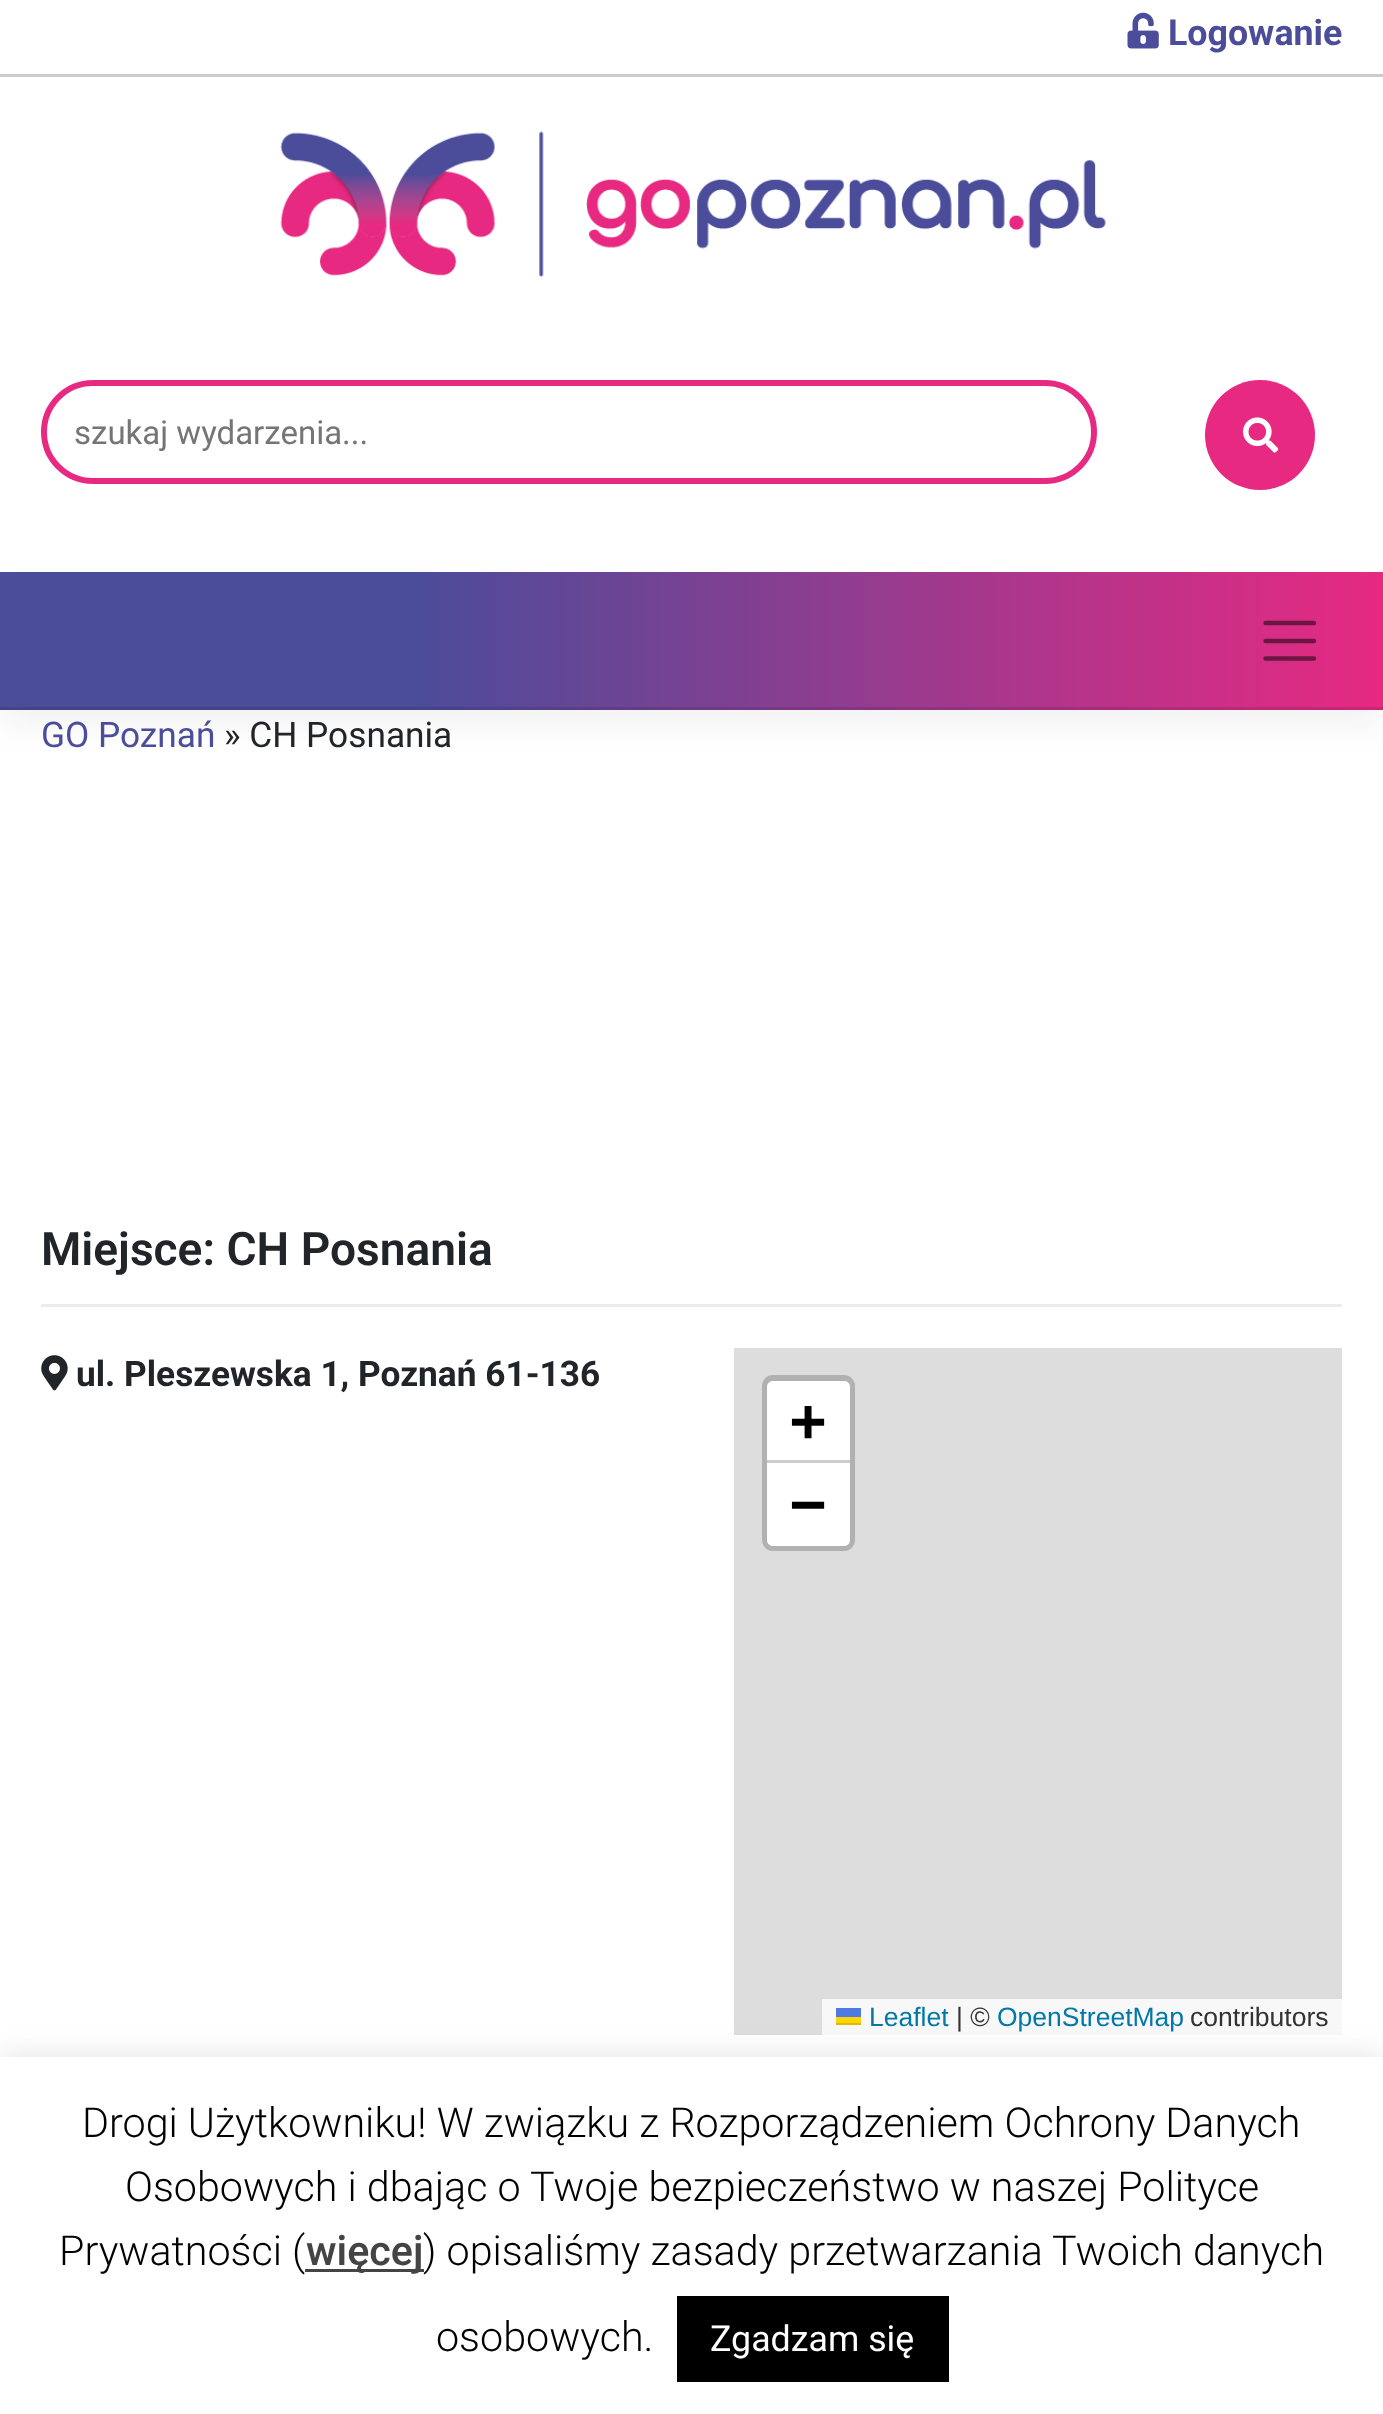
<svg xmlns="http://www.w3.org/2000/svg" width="1383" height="2414">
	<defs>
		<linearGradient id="g1" gradientUnits="userSpaceOnUse" x1="0" y1="641" x2="1383" y2="641"><stop offset="0.3" stop-color="#4B4C9A" /><stop offset="1" stop-color="#E72982" /></linearGradient>
	</defs>
	<rect width="100%" height="100%" fill="#FFFFFF" />
	<rect x="0" y="74" width="1383" height="3" fill="#CCCCCC" />
	<image x="1127" y="12" width="32" height="37" href="assets/img1.png" />
	<text x="1168" y="45" font-family="Roboto" font-size="35.75" font-weight="700" fill="#4B4C9A">Logowanie</text>
	<image x="280" y="131" width="826" height="146" href="assets/img2.png" />
	<rect x="44" y="383" width="1050" height="98" rx="49" fill="none" stroke="#E72982" stroke-width="6" />
	<text x="74" y="444" font-family="Roboto" font-size="33" fill="#757575">szukaj wydarzenia...</text>
	<circle cx="1260" cy="435" r="55" fill="#E72982" />
	<image x="1243" y="417" width="36" height="36" href="assets/img3.png" />
	<rect x="0" y="589" width="1383" height="137" fill="#000000" fill-opacity="0.05" filter="blur(17.5px)" />
	<rect x="0" y="572" width="1383" height="138" fill="url(#g1)" />
	<rect x="0" y="707" width="1383" height="3" fill="#000000" fill-opacity="0.1" />
	<path d="M1265.5 623H1314M1265.5 641H1314M1265.5 658.5H1314" fill="none" stroke="#000000" stroke-opacity="0.5" stroke-width="4.4" stroke-linecap="round" />
	<text x="41" y="747" font-family="Roboto" font-size="35.25" fill="#4B4C9A">GO Poznań</text>
	<text x="224" y="747" font-family="Roboto" font-size="35.25" fill="#212529">» CH Posnania</text>
	<rect x="41" y="1304" width="1301" height="3" fill="#EAECEF" />
	<text x="41" y="1265" font-family="Roboto" font-size="46.1" font-weight="600" fill="#212529">Miejsce: CH Posnania</text>
	<image x="41" y="1355" width="27" height="36" href="assets/img4.png" />
	<text x="76" y="1386" font-family="Roboto" font-size="35.25" font-weight="700" fill="#212529">ul. Pleszewska 1, Poznań 61-136</text>
	<rect x="734" y="1348" width="608" height="687" fill="#DDDDDD" />
	<rect x="765" y="1378" width="87" height="170" rx="8" fill="none" stroke="#B1B1B1" stroke-width="6" />
	<path d="M773 1381H844C847.5 1381 850 1383.5 850 1387V1463H767V1387C767 1383.5 769.5 1381 773 1381Z" fill="#FFFFFF" />
	<rect x="767" y="1460" width="83" height="3" fill="#CCCCCC" />
	<text x="790" y="1441" font-family="DejaVu Sans Mono" font-size="60" font-weight="700" fill="#000000">+</text>
	<path d="M767 1463H850V1540C850 1543.5 847.5 1546 844 1546H773C769.5 1546 767 1543.5 767 1540Z" fill="#FFFFFF" />
	<text x="790" y="1524" font-family="DejaVu Sans Mono" font-size="60" font-weight="700" fill="#000000">−</text>
	<rect x="822" y="1999" width="520" height="36" fill="#F8F8F8" />
	<text x="869" y="2026" font-family="Liberation Sans" font-size="26.5" fill="#0078A8">Leaflet</text>
	<rect x="836" y="2008" width="25" height="9" fill="#4C7BE1" />
	<rect x="836" y="2017" width="25" height="6" fill="#FFD500" />
	<rect x="836" y="2023" width="25" height="2" fill="#E0BC00" />
	<text x="956" y="2026" font-family="Liberation Sans" font-size="26.5" fill="#333333">| ©</text>
	<text x="997" y="2026" font-family="Liberation Sans" font-size="26.5" fill="#0078A8">OpenStreetMap</text>
	<text x="1190" y="2026" font-family="Liberation Sans" font-size="26.5" fill="#333333">contributors</text>
	<rect x="0" y="2054" width="1383" height="358" fill="#ACABAB" fill-opacity="0.3" filter="blur(14px)" />
	<rect x="0" y="2057" width="1383" height="357" fill="#FFFFFF" />
	<g font-family="Roboto" font-size="41.25" font-weight="300" fill="#000000">
		<text x="82" y="2137">Drogi Użytkowniku! W związku z Rozporządzeniem Ochrony Danych</text>
		<text x="125" y="2201">Osobowych i dbając o Twoje bezpieczeństwo w naszej Polityce</text>
		<text x="59" y="2265">Prywatności (</text>
	</g>
	<rect x="305" y="2269" width="119" height="3" fill="#444444" />
	<text x="306" y="2265" font-family="Roboto" font-size="41.25" font-weight="500" fill="#444444">więcej</text>
	<g font-family="Roboto" font-size="41.25" font-weight="300" fill="#000000">
		<text x="423" y="2265">) opisaliśmy zasady przetwarzania Twoich danych</text>
		<text x="436" y="2351">osobowych.</text>
	</g>
	<rect x="677" y="2296" width="272" height="86" fill="#000000" />
	<text x="710" y="2351" font-family="Roboto" font-size="35.75" fill="#FFFFFF">Zgadzam się</text>
</svg>
